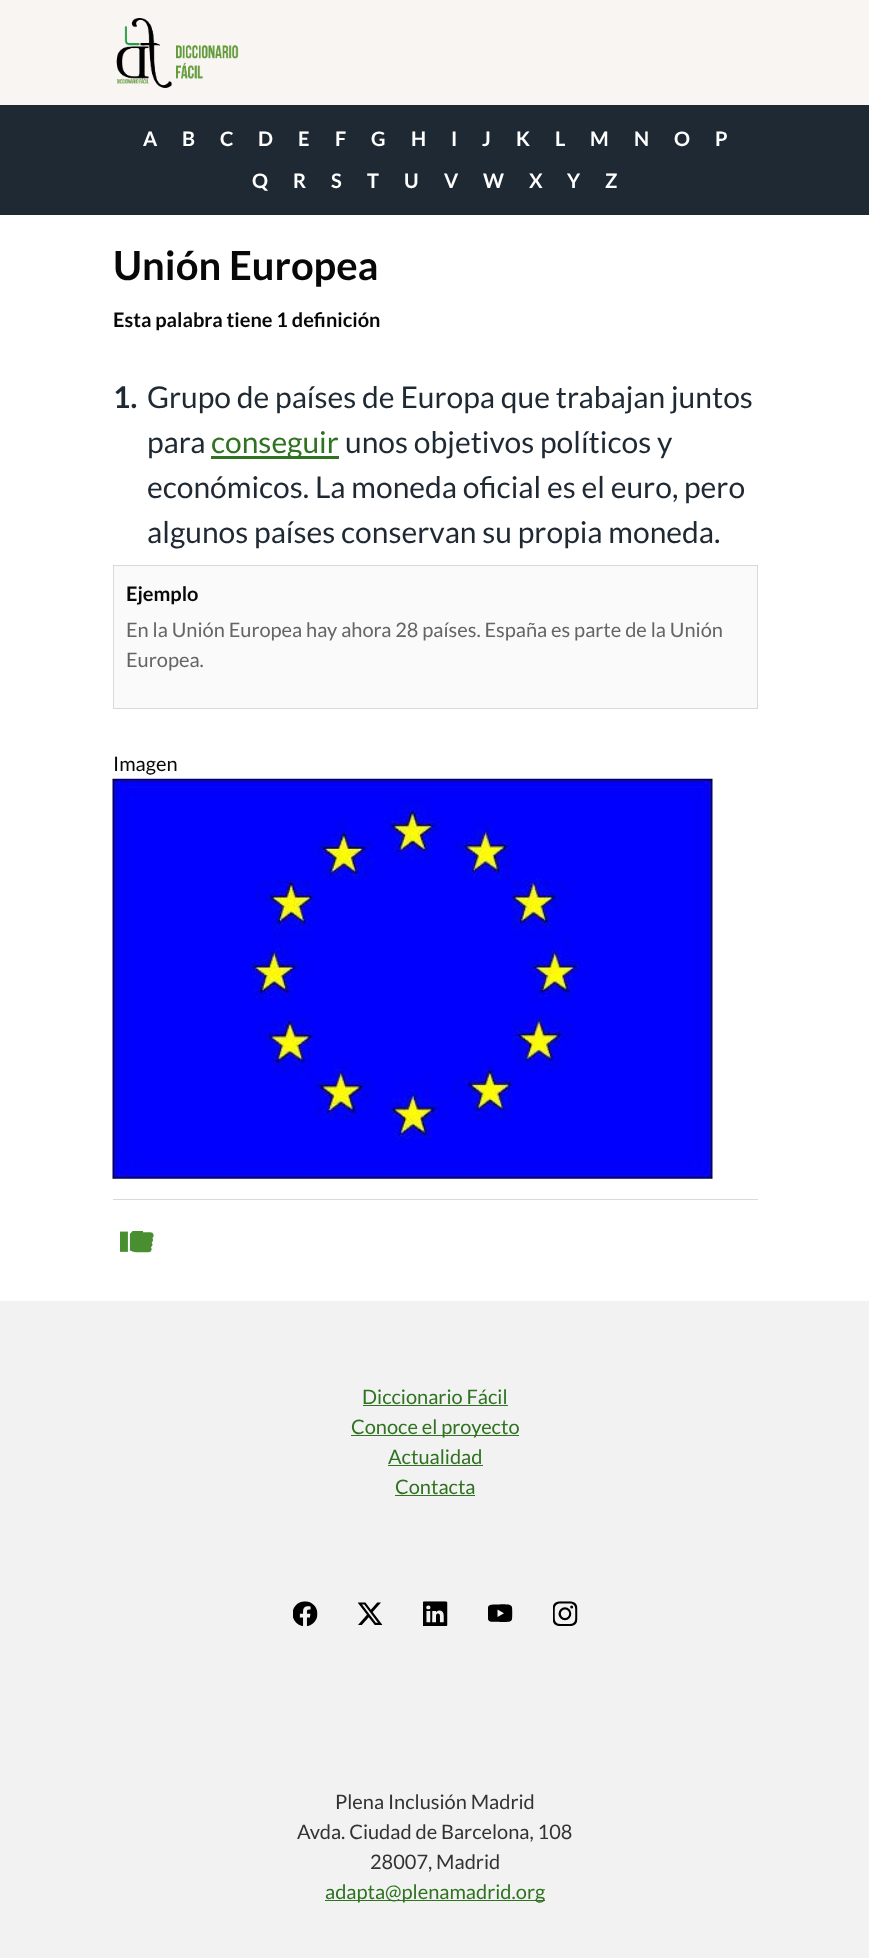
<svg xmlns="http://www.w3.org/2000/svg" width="869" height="1958">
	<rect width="100%" height="100%" fill="#FFFFFF" />
	<rect x="0" y="0" width="869" height="105" fill="#F9F5F2" />
	<image x="116" y="18" width="123" height="71" href="assets/img1.png" />
	<rect x="0" y="105" width="869" height="110" fill="#1F2933" />
	<g font-family="Lato" font-size="20" font-weight="700" fill="#FFFFFF">
		<text x="143" y="146">A</text>
		<text x="182" y="146">B</text>
		<text x="220" y="146">C</text>
		<text x="258" y="146">D</text>
		<text x="298" y="146">E</text>
		<text x="335" y="146">F</text>
		<text x="371" y="146">G</text>
		<text x="411" y="146">H</text>
		<text x="451" y="146">I</text>
		<text x="482" y="146">J</text>
		<text x="516" y="146">K</text>
		<text x="555" y="146">L</text>
		<text x="590" y="146">M</text>
		<text x="634" y="146">N</text>
		<text x="674" y="146">O</text>
		<text x="715" y="146">P</text>
		<text x="252" y="188">Q</text>
		<text x="293" y="188">R</text>
		<text x="331" y="188">S</text>
		<text x="367" y="188">T</text>
		<text x="404" y="188">U</text>
		<text x="444" y="188">V</text>
		<text x="483" y="188">W</text>
		<text x="529" y="188">X</text>
		<text x="567" y="188">Y</text>
		<text x="605" y="188">Z</text>
	</g>
	<text x="113" y="280" font-family="Lato" font-size="40" font-weight="700" fill="#080808">Unión Europea</text>
	<text x="113" y="327" font-family="Lato" font-size="20" font-weight="700" fill="#080808">Esta palabra tiene 1 definición</text>
	<text x="113" y="408" font-family="Lato" font-size="30" font-weight="700" fill="#1F2933">1.</text>
	<g font-family="Lato" font-size="30" fill="#1F2933">
		<text x="147" y="408">Grupo de países de Europa que trabajan juntos</text>
		<text x="147" y="453">para</text>
	</g>
	<rect x="211" y="456" width="128" height="3" fill="#2F7320" />
	<text x="211" y="453" font-family="Lato" font-size="30" fill="#2F7320">conseguir</text>
	<g font-family="Lato" font-size="30" fill="#1F2933">
		<text x="345" y="453">unos objetivos políticos y</text>
		<text x="147" y="498">económicos. La moneda oficial es el euro, pero</text>
		<text x="147" y="543">algunos países conservan su propia moneda.</text>
	</g>
	<rect x="113.5" y="565.5" width="644" height="143" fill="#FAFAFA" stroke="#D9D9D9" />
	<text x="126" y="601" font-family="Lato" font-size="20" font-weight="700" fill="#080808">Ejemplo</text>
	<g font-family="Lato" font-size="20" fill="#656565">
		<text x="126" y="637">En la Unión Europea hay ahora 28 países. España es parte de la Unión</text>
		<text x="126" y="667">Europea.</text>
	</g>
	<text x="113" y="771" font-family="Lato" font-size="20" fill="#080808">Imagen</text>
	<image x="112" y="778" width="601" height="401" href="assets/img2.png" />
	<rect x="113" y="1199" width="645" height="1" fill="#D9D9D9" />
	<image x="120" y="1231" width="34" height="22" href="assets/img3.png" />
	<rect x="0" y="1301" width="869" height="657" fill="#F2F2F2" />
	<text x="362" y="1404" font-family="Lato" font-size="20" fill="#2F7320">Diccionario Fácil</text>
	<rect x="363" y="1405" width="145" height="1" fill="#2F7320" />
	<rect x="351" y="1435" width="168" height="1" fill="#2F7320" />
	<g font-family="Lato" font-size="20" fill="#2F7320">
		<text x="351" y="1434">Conoce el proyecto</text>
		<text x="388" y="1464">Actualidad</text>
	</g>
	<rect x="388" y="1465" width="95" height="1" fill="#2F7320" />
	<text x="395" y="1494" font-family="Lato" font-size="20" fill="#2F7320">Contacta</text>
	<rect x="395" y="1495" width="80" height="1" fill="#2F7320" />
	<image x="293" y="1601" width="25" height="25" href="assets/img4.png" />
	<image x="358" y="1602" width="25" height="23" href="assets/img5.png" />
	<image x="423" y="1601" width="25" height="25" href="assets/img6.png" />
	<image x="488" y="1604" width="25" height="18" href="assets/img7.png" />
	<image x="553" y="1601" width="25" height="25" href="assets/img8.png" />
	<g font-family="Lato" font-size="20" fill="#333333">
		<text x="335" y="1809">Plena Inclusión Madrid</text>
		<text x="297" y="1839">Avda. Ciudad de Barcelona, 108</text>
		<text x="370" y="1869">28007, Madrid</text>
	</g>
	<rect x="325" y="1900" width="220" height="1" fill="#2F7320" />
	<text x="325" y="1899" font-family="Lato" font-size="20" fill="#2F7320">adapta@plenamadrid.org</text>
</svg>
